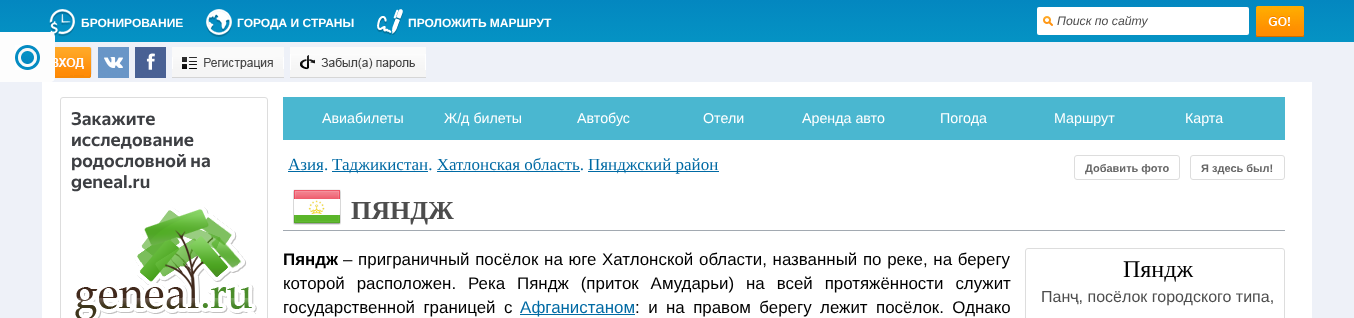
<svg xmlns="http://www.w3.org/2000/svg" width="1354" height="318">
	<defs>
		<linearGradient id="g1" gradientUnits="userSpaceOnUse" x1="0" y1="0" x2="0" y2="42"><stop offset="0" stop-color="#0387C0" /><stop offset="1" stop-color="#0593C4" /></linearGradient>
	</defs>
	<rect width="100%" height="100%" fill="#EEF1F8" />
	<rect x="0" y="0" width="1354" height="42" fill="url(#g1)" />
	<image x="49" y="9" width="26" height="28" href="assets/img1.png" />
	<text x="81" y="27" font-family="Liberation Sans" font-size="12" font-weight="700" fill="#FFFFFF">БРОНИРОВАНИЕ</text>
	<image x="206" y="9" width="26" height="28" href="assets/img2.png" />
	<text x="237" y="27" font-family="Liberation Sans" font-size="12" font-weight="700" fill="#FFFFFF">ГОРОДА И СТРАНЫ</text>
	<image x="377" y="9" width="26" height="26" href="assets/img3.png" />
	<text x="408" y="27" font-family="Liberation Sans" font-size="12" font-weight="700" fill="#FFFFFF">ПРОЛОЖИТЬ МАРШРУТ</text>
	<rect x="1037" y="7" width="212" height="28" rx="2" fill="#FFFFFF" />
	<image x="1043" y="16" width="10" height="10" href="assets/img4.png" />
	<text x="1057" y="25" font-family="Liberation Sans" font-size="12.25" font-style="italic" fill="#4D4D4D">Поиск по сайту</text>
	<image x="1256" y="6" width="48" height="31" href="assets/img5.png" />
	<image x="54" y="47" width="38" height="31" href="assets/img7.png" />
	<path d="M0 32H50C53 32 55 34 55 37V77C55 80 53 82 50 82H0Z" fill="#FDFDFD" />
	<image x="15" y="45" width="25" height="25" href="assets/img6.png" />
	<image x="98" y="47" width="31" height="31" href="assets/img8.png" />
	<image x="135" y="47" width="31" height="31" href="assets/img9.png" />
	<image x="172" y="47" width="112" height="31" href="assets/img10.png" />
	<image x="290" y="47" width="136" height="31" href="assets/img11.png" />
	<rect x="42" y="82" width="1270" height="236" fill="#FFFFFF" />
	<rect x="60.5" y="97.5" width="207" height="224" rx="2.5" fill="none" stroke="#DDDDDD" />
	<g font-family="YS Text" font-size="18" font-weight="700" fill="#3D3F43">
		<text x="71" y="125">Закажите</text>
		<text x="71" y="146">исследование</text>
		<text x="71" y="167">родословной на</text>
		<text x="71" y="188">geneal.ru</text>
	</g>
	<image x="74" y="207" width="183" height="111" href="assets/img12.png" />
	<rect x="283" y="97" width="1002" height="43" fill="#4AB7D0" />
	<g font-family="Liberation Sans" font-size="14.25" fill="#FFFFFF">
		<text x="322" y="123">Авиабилеты</text>
		<text x="444" y="123">Ж/д билеты</text>
		<text x="577" y="123">Автобус</text>
		<text x="703" y="123">Отели</text>
		<text x="802" y="123">Аренда авто</text>
		<text x="940" y="123">Погода</text>
		<text x="1054" y="123">Маршрут</text>
		<text x="1185" y="123">Карта</text>
	</g>
	<text x="288" y="170" font-family="Liberation Serif" font-size="17" fill="#006AA4">Азия.</text>
	<rect x="288" y="171" width="35" height="1" fill="#006AA4" />
	<rect x="332" y="171" width="96" height="1" fill="#006AA4" />
	<text x="332" y="170" font-family="Liberation Serif" font-size="17" fill="#006AA4">Таджикистан. Хатлонская область.</text>
	<rect x="588" y="171" width="131" height="1" fill="#006AA4" />
	<text x="588" y="170" font-family="Liberation Serif" font-size="17" fill="#006AA4">Пянджский район</text>
	<rect x="437" y="171" width="143" height="1" fill="#006AA4" />
	<rect x="1074.5" y="155.5" width="105" height="24" rx="2.5" fill="none" stroke="#DDDDDD" />
	<text x="1085" y="172" font-family="Liberation Sans" font-size="11" font-weight="700" fill="#666666">Добавить фото</text>
	<rect x="1190.5" y="155.5" width="94" height="24" rx="2.5" fill="none" stroke="#DDDDDD" />
	<text x="1201" y="172" font-family="Liberation Sans" font-size="11" font-weight="700" fill="#666666">Я здесь был!</text>
	<image x="293" y="189" width="48" height="36" href="assets/img13.png" />
	<rect x="283" y="230" width="1002" height="1" fill="#A2A9B1" />
	<text x="351" y="219" font-family="Liberation Serif" font-size="26" font-weight="700" fill="#4D4D4D">ПЯНДЖ</text>
	<text x="283" y="265" font-family="Liberation Sans" font-size="16.9" font-weight="700" fill="#000000">Пяндж</text>
	<g font-family="Liberation Sans" font-size="16.9" fill="#000000">
		<text x="343" y="265" word-spacing="1">– приграничный посёлок на юге Хатлонской области, названный по реке, на берегу</text>
		<text x="283" y="289" word-spacing="7.25">которой расположен. Река Пяндж (приток Амударьи) на всей протяжённости служит</text>
		<text x="283" y="313" word-spacing="3.75">государственной границей с</text>
	</g>
	<rect x="520" y="314" width="115" height="1" fill="#006AA4" />
	<text x="520" y="313" font-family="Liberation Sans" font-size="16.9" fill="#006AA4">Афганистаном</text>
	<text x="635" y="313" word-spacing="3.75" font-family="Liberation Sans" font-size="16.9" fill="#000000">: и на правом берегу лежит посёлок. Однако</text>
	<rect x="1025.5" y="248.5" width="259" height="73" rx="2.5" fill="none" stroke="#DDDDDD" />
	<text x="1123" y="277" font-family="Liberation Serif" font-size="24" fill="#000000">Пяндж</text>
	<text x="1041" y="302" font-family="Liberation Sans" font-size="16" fill="#4D4D4D">Панҷ, посёлок городского типа,</text>
</svg>
